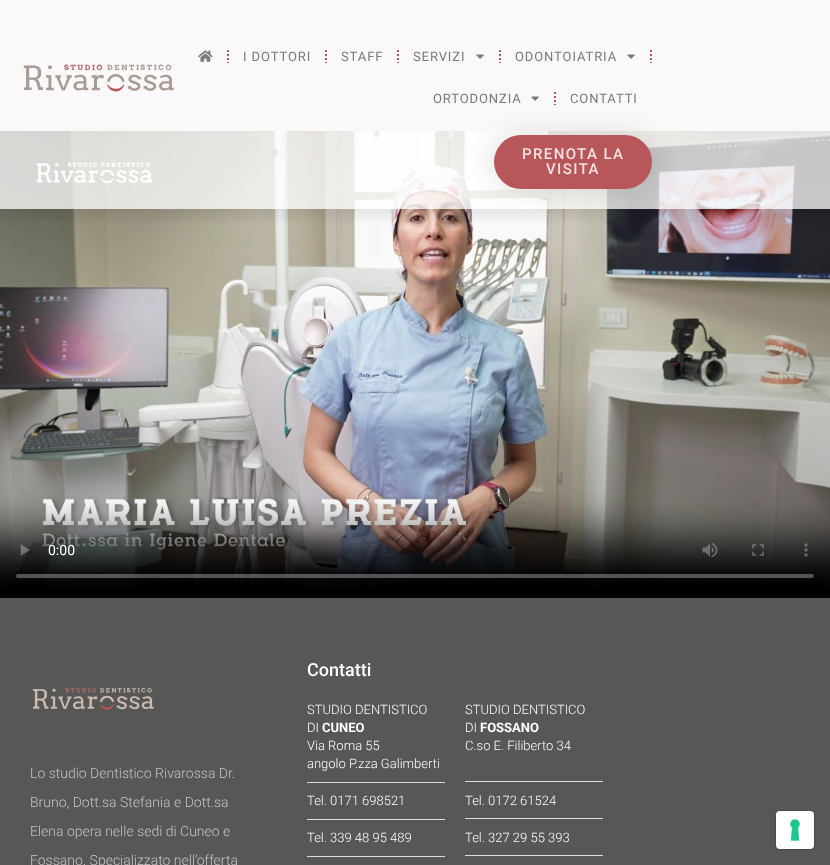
<svg xmlns="http://www.w3.org/2000/svg" width="830" height="865">
	<defs>
		<clipPath id="clip1"><rect x="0" y="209" width="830" height="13" /></clipPath>
	</defs>
	<rect width="100%" height="100%" fill="#ECE4E4" />
	<image x="0" y="131" width="830" height="455" href="assets/img5.png" />
	<g clip-path="url(#clip1)">
		<rect x="0" y="0" width="830" height="209" fill="#000000" fill-opacity="0.15" filter="blur(12px)" />
	</g>
	<rect x="0" y="0" width="830" height="209" fill="#FFFFFF" fill-opacity="0.75" />
	<image x="23" y="64" width="151" height="28" href="assets/img1.png" />
	<image x="198" y="50" width="15" height="12" href="assets/img2.png" />
	<path d="M228 50V52M228 54V56M228 58V60M228 62V63" fill="none" stroke="#B8575A" stroke-width="2" />
	<text x="243" y="61" font-family="Roboto" font-size="13" letter-spacing="0.9" fill="#7A7A7A">I DOTTORI</text>
	<path d="M326 50V52M326 54V56M326 58V60M326 62V63" fill="none" stroke="#B8575A" stroke-width="2" />
	<text x="341" y="61" font-family="Roboto" font-size="13" letter-spacing="0.9" fill="#7A7A7A">STAFF</text>
	<path d="M398 50V52M398 54V56M398 58V60M398 62V63" fill="none" stroke="#B8575A" stroke-width="2" />
	<text x="413" y="61" font-family="Roboto" font-size="13" letter-spacing="0.9" fill="#7A7A7A">SERVIZI</text>
	<image x="476" y="54" width="8" height="5" href="assets/img3.png" />
	<path d="M500 50V52M500 54V56M500 58V60M500 62V63" fill="none" stroke="#B8575A" stroke-width="2" />
	<text x="515" y="61" font-family="Roboto" font-size="13" letter-spacing="0.9" fill="#7A7A7A">ODONTOIATRIA</text>
	<image x="627" y="54" width="8" height="5" href="assets/img3.png" />
	<path d="M651 50V52M651 54V56M651 58V60M651 62V63" fill="none" stroke="#B8575A" stroke-width="2" />
	<rect x="494" y="135" width="158" height="54" rx="27" fill="#000000" fill-opacity="0.12" filter="blur(13.5px)" />
	<text x="433" y="103" font-family="Roboto" font-size="13" letter-spacing="0.9" fill="#7A7A7A">ORTODONZIA</text>
	<image x="531" y="96" width="8" height="5" href="assets/img4.png" />
	<path d="M555 92V94M555 96V98M555 100V102M555 104V105" fill="none" stroke="#B8575A" stroke-width="2" />
	<text x="570" y="103" font-family="Roboto" font-size="13" letter-spacing="0.9" fill="#7A7A7A">CONTATTI</text>
	<rect x="494" y="135" width="158" height="54" rx="27" fill="#B8575A" />
	<g font-family="Roboto" font-size="15" font-weight="500" letter-spacing="1.4" fill="#F1E2E2">
		<text x="522" y="159">PRENOTA LA</text>
		<text x="546" y="174">VISITA</text>
	</g>
	<rect x="0" y="586" width="830" height="12" fill="#000000" />
	<rect x="0" y="598" width="830" height="267" fill="#575756" />
	<image x="33" y="688" width="121" height="22" href="assets/img6.png" />
	<g font-family="Roboto" font-size="14" font-weight="300" fill="#C4C4C4">
		<text x="30" y="778">Lo studio Dentistico Rivarossa Dr.</text>
		<text x="30" y="807">Bruno, Dott.sa Stefania e Dott.sa</text>
		<text x="30" y="836">Elena opera nelle sedi di Cuneo e</text>
		<text x="30" y="865">Fossano. Specializzato nell’offerta</text>
	</g>
	<text x="307" y="676" font-family="Roboto" font-size="18" font-weight="500" fill="#FFFFFF">Contatti</text>
	<g font-family="Roboto" font-size="13" font-weight="300" fill="#FFFFFF">
		<text x="307" y="714">STUDIO DENTISTICO</text>
		<text x="307" y="732">DI</text>
	</g>
	<text x="322" y="732" font-family="Roboto" font-size="13" font-weight="700" fill="#FFFFFF">CUNEO</text>
	<g font-family="Roboto" font-size="13" font-weight="300" fill="#FFFFFF">
		<text x="307" y="750">Via Roma 55</text>
		<text x="307" y="768">angolo P.zza Galimberti</text>
	</g>
	<rect x="307" y="782" width="138" height="1" fill="#DDDDDD" />
	<text x="307" y="805" font-family="Roboto" font-size="13" font-weight="300" fill="#FFFFFF">Tel. 0171 698521</text>
	<rect x="307" y="819" width="138" height="1" fill="#DDDDDD" />
	<text x="307" y="842" font-family="Roboto" font-size="13" font-weight="300" fill="#FFFFFF">Tel. 339 48 95 489</text>
	<rect x="307" y="856" width="138" height="1" fill="#DDDDDD" />
	<g font-family="Roboto" font-size="13" font-weight="300" fill="#FFFFFF">
		<text x="465" y="714">STUDIO DENTISTICO</text>
		<text x="465" y="732">DI</text>
	</g>
	<text x="480" y="732" font-family="Roboto" font-size="13" font-weight="700" fill="#FFFFFF">FOSSANO</text>
	<text x="465" y="750" font-family="Roboto" font-size="13" font-weight="300" fill="#FFFFFF">C.so E. Filiberto 34</text>
	<rect x="465" y="781" width="138" height="1" fill="#DDDDDD" />
	<text x="465" y="805" font-family="Roboto" font-size="13" font-weight="300" fill="#FFFFFF">Tel. 0172 61524</text>
	<rect x="465" y="818" width="138" height="1" fill="#DDDDDD" />
	<text x="465" y="842" font-family="Roboto" font-size="13" font-weight="300" fill="#FFFFFF">Tel. 327 29 55 393</text>
	<rect x="465" y="855" width="138" height="1" fill="#DDDDDD" />
	<rect x="775.5" y="810.5" width="39" height="39" rx="4.5" fill="none" stroke="#4A4A49" />
	<rect x="776" y="811" width="38" height="38" rx="4" fill="#FFFFFF" />
	<image x="790" y="819" width="10" height="22" href="assets/img7.png" />
</svg>
